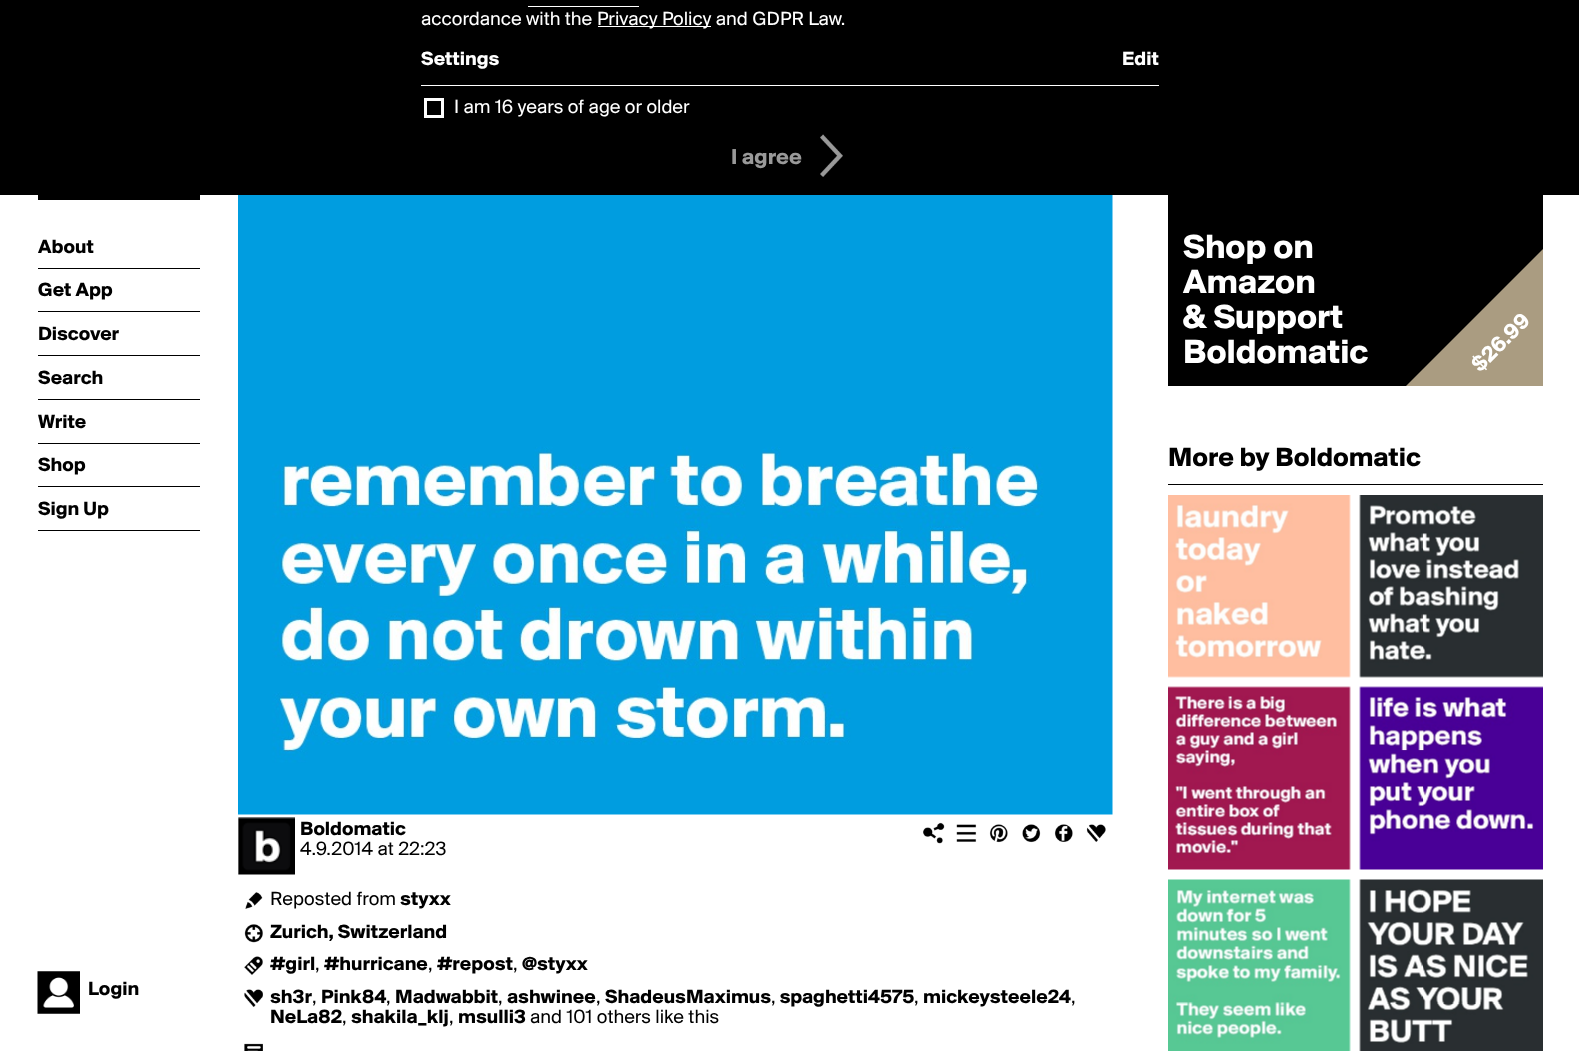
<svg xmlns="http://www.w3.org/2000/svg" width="1579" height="1051">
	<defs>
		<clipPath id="clip1"><rect x="1168" y="11" width="375" height="375" /></clipPath>
	</defs>
	<rect width="100%" height="100%" fill="#FFFFFF" />
	<rect x="0" y="0" width="1579" height="195" fill="#000000" />
	<rect x="528" y="6" width="111" height="1" fill="#FFFFFF" />
	<text x="421" y="25" font-family="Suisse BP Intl" font-size="20" fill="#FFFFFF">accordance with the</text>
	<rect x="598" y="26" width="113" height="1" fill="#FFFFFF" />
	<text x="597" y="25" font-family="Suisse BP Intl" font-size="20" fill="#FFFFFF">Privacy Policy and GDPR Law.</text>
	<g font-family="Suisse BP Intl" font-size="20" font-weight="700" fill="#FFFFFF">
		<text x="421" y="65">Settings</text>
		<text x="1122" y="65">Edit</text>
	</g>
	<rect x="421" y="85" width="738" height="1" fill="#FFFFFF" />
	<rect x="425.5" y="99.5" width="17" height="17" fill="none" stroke="#FFFFFF" stroke-width="3" />
	<text x="454" y="113" font-family="Suisse BP Intl" font-size="20" fill="#FFFFFF">I am 16 years of age or older</text>
	<text x="731" y="164" font-family="Suisse BP Intl" font-size="22.5" font-weight="700" fill="#999999">I agree</text>
	<image x="820" y="134" width="23" height="43" href="assets/img1.png" />
	<rect x="38" y="195" width="162" height="5" fill="#000000" />
	<rect x="38" y="268" width="162" height="1" fill="#000000" />
	<text x="38" y="253" font-family="Suisse BP Intl" font-size="20" font-weight="700" fill="#000000">About</text>
	<rect x="38" y="311" width="162" height="1" fill="#000000" />
	<text x="38" y="296" font-family="Suisse BP Intl" font-size="20" font-weight="700" fill="#000000">Get App</text>
	<rect x="38" y="355" width="162" height="1" fill="#000000" />
	<text x="38" y="340" font-family="Suisse BP Intl" font-size="20" font-weight="700" fill="#000000">Discover</text>
	<rect x="38" y="399" width="162" height="1" fill="#000000" />
	<text x="38" y="384" font-family="Suisse BP Intl" font-size="20" font-weight="700" fill="#000000">Search</text>
	<rect x="38" y="443" width="162" height="1" fill="#000000" />
	<text x="38" y="428" font-family="Suisse BP Intl" font-size="20" font-weight="700" fill="#000000">Write</text>
	<rect x="38" y="486" width="162" height="1" fill="#000000" />
	<text x="38" y="471" font-family="Suisse BP Intl" font-size="20" font-weight="700" fill="#000000">Shop</text>
	<rect x="38" y="530" width="162" height="1" fill="#000000" />
	<text x="38" y="515" font-family="Suisse BP Intl" font-size="20" font-weight="700" fill="#000000">Sign Up</text>
	<image x="37" y="971" width="43" height="43" href="assets/img2.png" />
	<text x="88" y="995" font-family="Suisse BP Intl" font-size="20" font-weight="700" fill="#000000">Login</text>
	<image x="238" y="195" width="875" height="620" href="assets/img3.png" />
	<image x="238" y="817" width="57" height="58" href="assets/img4.png" />
	<text x="300" y="835" font-family="Suisse BP Intl" font-size="20" font-weight="700" fill="#000000">Boldomatic</text>
	<text x="300" y="855" font-family="Suisse BP Intl" font-size="20" fill="#000000">4.9.2014 at 22:23</text>
	<image x="923" y="822" width="22" height="22" href="assets/img5.png" />
	<image x="956" y="824" width="21" height="18" href="assets/img6.png" />
	<image x="989" y="824" width="19" height="19" href="assets/img7.png" />
	<image x="1022" y="824" width="19" height="19" href="assets/img8.png" />
	<image x="1054" y="824" width="19" height="18" href="assets/img9.png" />
	<image x="1086" y="824" width="20" height="18" href="assets/img10.png" />
	<image x="245" y="892" width="18" height="17" href="assets/img11.png" />
	<text x="270" y="905" font-family="Suisse BP Intl" font-size="20" fill="#000000">Reposted from</text>
	<text x="400" y="905" font-family="Suisse BP Intl" font-size="20" font-weight="700" fill="#000000">styxx</text>
	<image x="244" y="924" width="19" height="19" href="assets/img12.png" />
	<text x="270" y="938" font-family="Suisse BP Intl" font-size="20" font-weight="700" fill="#000000">Zurich, Switzerland</text>
	<image x="244" y="956" width="19" height="19" href="assets/img13.png" />
	<text x="270" y="970" font-family="Suisse BP Intl" font-size="20" font-weight="700" fill="#000000">#girl</text>
	<text x="315" y="970" font-family="Suisse BP Intl" font-size="20" fill="#000000">,</text>
	<text x="324" y="970" font-family="Suisse BP Intl" font-size="20" font-weight="700" fill="#000000">#hurricane</text>
	<text x="428" y="970" font-family="Suisse BP Intl" font-size="20" fill="#000000">,</text>
	<text x="437" y="970" font-family="Suisse BP Intl" font-size="20" font-weight="700" fill="#000000">#repost</text>
	<text x="513" y="970" font-family="Suisse BP Intl" font-size="20" fill="#000000">,</text>
	<text x="522" y="970" font-family="Suisse BP Intl" font-size="20" font-weight="700" fill="#000000">@styxx</text>
	<image x="244" y="989" width="19" height="18" href="assets/img14.png" />
	<text x="270" y="1003" font-family="Suisse BP Intl" font-size="20" font-weight="700" fill="#000000">sh3r</text>
	<text x="312" y="1003" font-family="Suisse BP Intl" font-size="20" fill="#000000">,</text>
	<text x="321" y="1003" font-family="Suisse BP Intl" font-size="20" font-weight="700" fill="#000000">Pink84</text>
	<text x="386" y="1003" font-family="Suisse BP Intl" font-size="20" fill="#000000">,</text>
	<text x="395" y="1003" font-family="Suisse BP Intl" font-size="20" font-weight="700" fill="#000000">Madwabbit</text>
	<text x="498" y="1003" font-family="Suisse BP Intl" font-size="20" fill="#000000">,</text>
	<text x="507" y="1003" font-family="Suisse BP Intl" font-size="20" font-weight="700" fill="#000000">ashwinee</text>
	<text x="596" y="1003" font-family="Suisse BP Intl" font-size="20" fill="#000000">,</text>
	<text x="605" y="1003" font-family="Suisse BP Intl" font-size="20" font-weight="700" fill="#000000">ShadeusMaximus</text>
	<text x="771" y="1003" font-family="Suisse BP Intl" font-size="20" fill="#000000">,</text>
	<text x="780" y="1003" font-family="Suisse BP Intl" font-size="20" font-weight="700" fill="#000000">spaghetti4575</text>
	<text x="914" y="1003" font-family="Suisse BP Intl" font-size="20" fill="#000000">,</text>
	<text x="923" y="1003" font-family="Suisse BP Intl" font-size="20" font-weight="700" fill="#000000">mickeysteele24</text>
	<text x="1071" y="1003" font-family="Suisse BP Intl" font-size="20" fill="#000000">,</text>
	<text x="270" y="1023" font-family="Suisse BP Intl" font-size="20" font-weight="700" fill="#000000">NeLa82</text>
	<text x="342" y="1023" font-family="Suisse BP Intl" font-size="20" fill="#000000">,</text>
	<text x="351" y="1023" font-family="Suisse BP Intl" font-size="20" font-weight="700" fill="#000000">shakila_klj</text>
	<text x="449" y="1023" font-family="Suisse BP Intl" font-size="20" fill="#000000">,</text>
	<text x="458" y="1023" font-family="Suisse BP Intl" font-size="20" font-weight="700" fill="#000000">msulli3</text>
	<text x="530" y="1023" font-family="Suisse BP Intl" font-size="20" fill="#000000">and 101 others like this</text>
	<image x="244" y="1043" width="19" height="8" href="assets/img15.png" />
	<rect x="1168" y="195" width="375" height="191" fill="#000000" />
	<g font-family="Suisse BP Intl" font-size="35" font-weight="700" fill="#FFFFFF">
		<text x="1183" y="258">Shop on</text>
		<text x="1183" y="293">Amazon</text>
		<text x="1183" y="328">&amp; Support</text>
		<text x="1183" y="363">Boldomatic</text>
	</g>
	<g clip-path="url(#clip1)">
		<path d="M1388 404L1562 230L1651 318L1477 493Z" fill="#AA9C81" />
	</g>
	<text x="1480" y="373" transform="rotate(-45 1480 373)" font-family="Suisse BP Intl" font-size="22.5" font-weight="700" fill="#FFFFFF">$26.99</text>
	<rect x="1168" y="484" width="375" height="1" fill="#000000" />
	<text x="1168" y="466" font-family="Suisse BP Intl" font-size="27.5" font-weight="700" fill="#000000">More by Boldomatic</text>
	<image x="1168" y="495" width="183" height="183" href="assets/img16.png" />
	<image x="1359" y="495" width="184" height="183" href="assets/img17.png" />
	<image x="1168" y="686" width="183" height="184" href="assets/img18.png" />
	<image x="1359" y="686" width="184" height="184" href="assets/img19.png" />
	<image x="1168" y="879" width="183" height="172" href="assets/img20.png" />
	<image x="1359" y="879" width="184" height="172" href="assets/img21.png" />
</svg>
